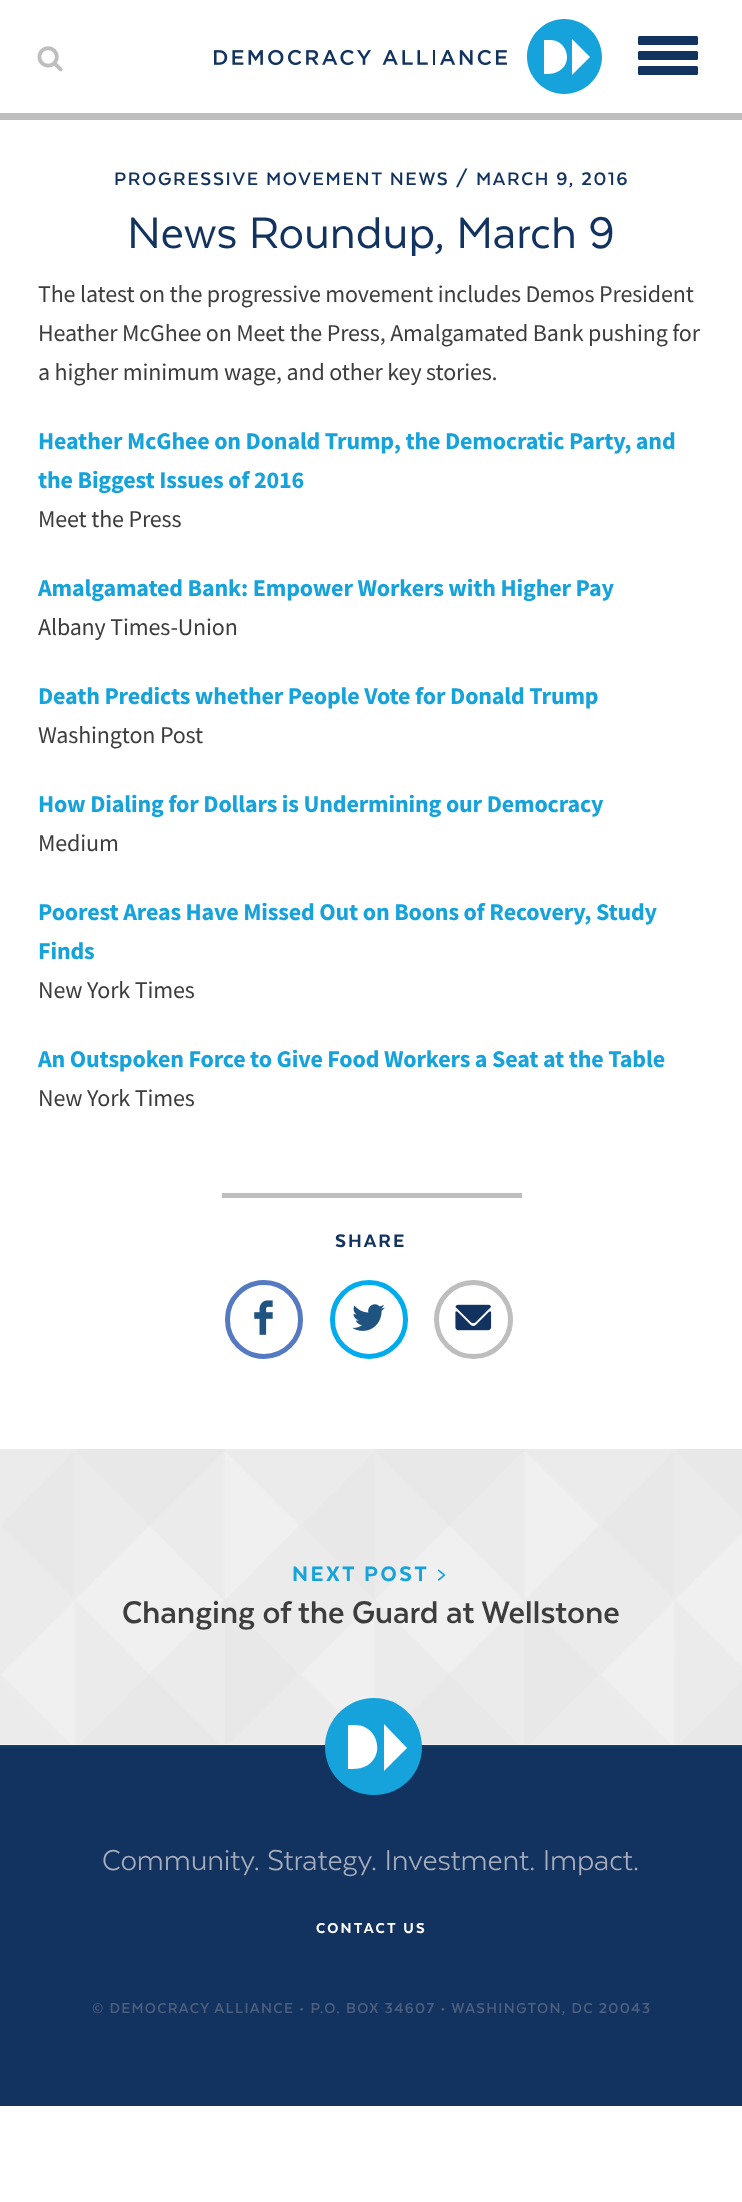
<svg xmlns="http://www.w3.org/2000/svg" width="742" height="2202">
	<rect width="100%" height="100%" fill="#FFFFFF" />
	<rect x="0" y="113" width="742" height="7" fill="#BEBEBE" />
	<image x="37" y="46" width="26" height="26" href="assets/img1.png" />
	<image x="214" y="49" width="293" height="16" href="assets/img2.png" />
	<path d="M602 57C602 77 585 94 564 94C544 94 527 77 527 57C527 36 544 19 564 19C585 19 602 36 602 57M572 75L590 57L572 39ZM550 40H544V74C548 74 553 74 557 72C574 65 568 40 550 40" fill="#16A3DC" />
	<rect x="638" y="51" width="60" height="9" rx="1.5" fill="#12325F" />
	<rect x="638" y="36" width="60" height="9" rx="1.5" fill="#12325F" />
	<rect x="638" y="66" width="60" height="9" rx="1.5" fill="#12325F" />
	<text x="114" y="185" font-family="'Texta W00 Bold'" font-size="21" font-weight="700" letter-spacing="1.7" fill="#12325F">PROGRESSIVE MOVEMENT NEWS / MARCH 9, 2016</text>
	<text x="127" y="248" font-family="'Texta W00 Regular'" font-size="51" fill="#12325F">News Roundup, March 9</text>
	<g font-family="Source Sans Pro" font-size="24" letter-spacing="-0.15" fill="#3D3D3D">
		<text x="38" y="302">The latest on the progressive movement includes Demos President</text>
		<text x="38" y="341">Heather McGhee on Meet the Press, Amalgamated Bank pushing for</text>
		<text x="38" y="380">a higher minimum wage, and other key stories.</text>
	</g>
	<g font-family="Source Sans Pro" font-size="24" font-weight="700" letter-spacing="-0.15" fill="#16A3DB">
		<text x="38" y="449">Heather McGhee on Donald Trump, the Democratic Party, and</text>
		<text x="38" y="488">the Biggest Issues of 2016</text>
	</g>
	<text x="38" y="527" font-family="Source Sans Pro" font-size="24" letter-spacing="-0.15" fill="#3D3D3D">Meet the Press</text>
	<text x="38" y="596" font-family="Source Sans Pro" font-size="24" font-weight="700" letter-spacing="-0.15" fill="#16A3DB">Amalgamated Bank: Empower Workers with Higher Pay</text>
	<text x="38" y="635" font-family="Source Sans Pro" font-size="24" letter-spacing="-0.15" fill="#3D3D3D">Albany Times-Union</text>
	<text x="38" y="704" font-family="Source Sans Pro" font-size="24" font-weight="700" letter-spacing="-0.15" fill="#16A3DB">Death Predicts whether People Vote for Donald Trump</text>
	<text x="38" y="743" font-family="Source Sans Pro" font-size="24" letter-spacing="-0.15" fill="#3D3D3D">Washington Post</text>
	<text x="38" y="812" font-family="Source Sans Pro" font-size="24" font-weight="700" letter-spacing="-0.15" fill="#16A3DB">How Dialing for Dollars is Undermining our Democracy</text>
	<text x="38" y="851" font-family="Source Sans Pro" font-size="24" letter-spacing="-0.15" fill="#3D3D3D">Medium</text>
	<g font-family="Source Sans Pro" font-size="24" font-weight="700" letter-spacing="-0.15" fill="#16A3DB">
		<text x="38" y="920">Poorest Areas Have Missed Out on Boons of Recovery, Study</text>
		<text x="38" y="959">Finds</text>
	</g>
	<text x="38" y="998" font-family="Source Sans Pro" font-size="24" letter-spacing="-0.15" fill="#3D3D3D">New York Times</text>
	<text x="38" y="1067" font-family="Source Sans Pro" font-size="24" font-weight="700" letter-spacing="-0.15" fill="#16A3DB">An Outspoken Force to Give Food Workers a Seat at the Table</text>
	<text x="38" y="1106" font-family="Source Sans Pro" font-size="24" letter-spacing="-0.15" fill="#3D3D3D">New York Times</text>
	<rect x="222" y="1193" width="300" height="5" fill="#BEBEBE" />
	<text x="335" y="1247" font-family="'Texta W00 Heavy'" font-size="21" font-weight="900" letter-spacing="2" fill="#12325F">SHARE</text>
	<image x="254" y="1300" width="19" height="35" href="assets/img3.png" />
	<rect x="227.5" y="1282.5" width="73" height="74" rx="36.5" fill="none" stroke="#567AC2" stroke-width="5" />
	<image x="352" y="1304" width="33" height="27" href="assets/img4.png" />
	<rect x="332.5" y="1282.5" width="73" height="74" rx="36.5" fill="none" stroke="#00ACED" stroke-width="5" />
	<image x="455" y="1304" width="37" height="27" href="assets/img5.png" />
	<circle cx="473.5" cy="1319.5" r="37" fill="none" stroke="#BEBEBE" stroke-width="5" />
	<image x="0" y="1449" width="742" height="296" href="assets/img6.png" />
	<text x="292" y="1581" font-family="'Texta W00 Heavy'" font-size="24" font-weight="900" letter-spacing="2.5" fill="#16A3DB">NEXT POST</text>
	<image x="437" y="1569" width="9" height="12" href="assets/img7.png" />
	<text x="122" y="1623" font-family="'Texta W00 Bold'" font-size="36" font-weight="700" letter-spacing="-0.15" fill="#3D3D3D">Changing of the Guard at Wellstone</text>
	<rect x="0" y="1747" width="742" height="359" fill="#12325F" />
	<rect x="0" y="1745" width="742" height="2" fill="#103E68" />
	<circle cx="374" cy="1747.5" r="41.5" fill="#FFFFFF" />
	<path d="M422 1747C422 1774 401 1795 374 1795C347 1795 325 1774 325 1747C325 1720 347 1698 374 1698C401 1698 422 1720 422 1747M384 1771L407 1748L384 1724ZM355 1725H348V1769C353 1769 359 1769 364 1767C386 1758 379 1725 355 1725" fill="#16A3DC" />
	<text x="102" y="1870" font-family="'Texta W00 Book'" font-size="33" letter-spacing="-0.15" fill="#A7ADBA">Community. Strategy. Investment. Impact.</text>
	<text x="316" y="1933" font-family="'Texta W00 Heavy'" font-size="16.5" font-weight="900" letter-spacing="2.25" fill="#FFFFFF">CONTACT US</text>
	<text x="92" y="2013" font-family="'Texta W00 Bold'" font-size="16.5" font-weight="700" letter-spacing="1.32" fill="#4E5F7D">© DEMOCRACY ALLIANCE • P.O. BOX 34607 • WASHINGTON, DC 20043</text>
</svg>
